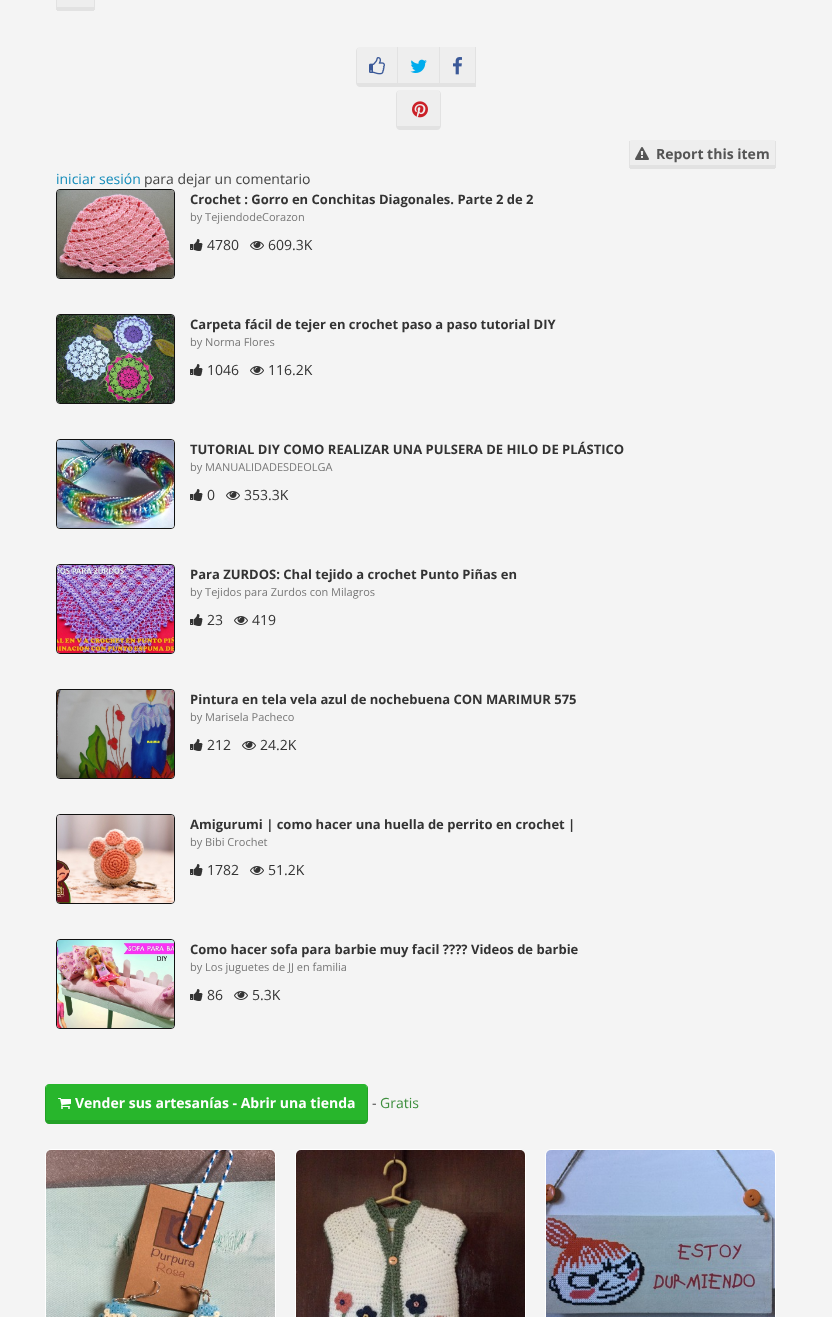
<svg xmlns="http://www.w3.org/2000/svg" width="832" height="1317">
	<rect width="100%" height="100%" fill="#F4F4F4" />
	<path d="M58-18H93C93.5-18 94-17 94-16V7H57V-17Z" fill="#EEEEEE" />
	<rect x="94" y="0" width="1" height="10" fill="#E2E2E2" />
	<rect x="57" y="7" width="37" height="4" fill="#E2E2E2" />
	<rect x="56" y="0" width="1" height="10" fill="#E2E2E2" />
	<path d="M360 47H397V83H357V51C357 49 358 47 360 47Z" fill="#EEEEEE" />
	<path d="M360 47H398V87H360C358 87 356 85 356 83V51C356 49 358 47 360 47ZM360 47H397V83H357V51C357 49 358 47 360 47Z" fill="#E2E2E2" fill-rule="evenodd" />
	<image x="369" y="57" width="16" height="18" href="assets/img1.png" />
	<rect x="398" y="47" width="41" height="36" fill="#EEEEEE" />
	<rect x="439" y="47" width="1" height="40" fill="#E2E2E2" />
	<rect x="397" y="83" width="43" height="4" fill="#E2E2E2" />
	<image x="410" y="59" width="17" height="14" href="assets/img2.png" />
	<rect x="440" y="47" width="35" height="36" fill="#EEEEEE" />
	<rect x="475" y="47" width="1" height="40" fill="#E2E2E2" />
	<rect x="439" y="83" width="37" height="4" fill="#E2E2E2" />
	<image x="453" y="57" width="9" height="18" href="assets/img3.png" />
	<path d="M400 90H437C439 90 440 92 440 94V126H397V94C397 92 398 90 400 90Z" fill="#EEEEEE" />
	<path d="M400 90H437C439 90 441 92 441 94V126C441 128 439 130 437 130H400C398 130 396 128 396 126V94C396 92 398 90 400 90ZM400 90H437C439 90 440 92 440 94V126H397V94C397 92 398 90 400 90Z" fill="#E2E2E2" fill-rule="evenodd" />
	<image x="412" y="101" width="16" height="17" href="assets/img4.png" />
	<path d="M631 140H774C775 140 775 141 775 142V165H630V141Z" fill="#EEEEEE" />
	<rect x="775" y="141" width="1" height="27" fill="#E2E2E2" />
	<rect x="630" y="165" width="145" height="4" fill="#E2E2E2" />
	<rect x="629" y="141" width="1" height="27" fill="#E2E2E2" />
	<image x="635" y="147" width="14" height="13" href="assets/img5.png" />
	<text x="656" y="159" font-family="Open Sans" font-size="14" font-weight="700" fill="#555555">Report this item</text>
	<text x="56" y="184" font-family="Open Sans" font-size="14" fill="#158CBA">iniciar sesión</text>
	<text x="144" y="184" font-family="Open Sans" font-size="14" fill="#444444">para dejar un comentario</text>
	<rect x="56.5" y="189.5" width="118" height="89" rx="3.5" fill="none" stroke="#111111" />
	<image x="57" y="190" width="117" height="88" href="assets/img6.png" />
	<text x="190" y="204" font-family="Open Sans" font-size="13" font-weight="700" fill="#333333">Crochet : Gorro en Conchitas Diagonales. Parte 2 de 2</text>
	<text x="190" y="221" font-family="Open Sans" font-size="11" fill="#777777">by TejiendodeCorazon</text>
	<image x="190" y="239" width="13" height="12" href="assets/img7.png" />
	<text x="207" y="250" font-family="Open Sans" font-size="14" fill="#333333">4780</text>
	<image x="250" y="241" width="14" height="9" href="assets/img8.png" />
	<text x="268" y="250" font-family="Open Sans" font-size="14" fill="#333333">609.3K</text>
	<rect x="56.5" y="314.5" width="118" height="89" rx="3.5" fill="none" stroke="#111111" />
	<image x="57" y="315" width="117" height="88" href="assets/img9.png" />
	<text x="190" y="329" font-family="Open Sans" font-size="13" font-weight="700" fill="#333333">Carpeta fácil de tejer en crochet paso a paso tutorial DIY</text>
	<text x="190" y="346" font-family="Open Sans" font-size="11" fill="#777777">by Norma Flores</text>
	<image x="190" y="364" width="13" height="12" href="assets/img7.png" />
	<text x="207" y="375" font-family="Open Sans" font-size="14" fill="#333333">1046</text>
	<image x="250" y="366" width="14" height="9" href="assets/img8.png" />
	<text x="268" y="375" font-family="Open Sans" font-size="14" fill="#333333">116.2K</text>
	<rect x="56.5" y="439.5" width="118" height="89" rx="3.5" fill="none" stroke="#111111" />
	<image x="57" y="440" width="117" height="88" href="assets/img10.png" />
	<text x="190" y="454" font-family="Open Sans" font-size="13" font-weight="700" fill="#333333">TUTORIAL DIY COMO REALIZAR UNA PULSERA DE HILO DE PLÁSTICO</text>
	<text x="190" y="471" font-family="Open Sans" font-size="11" fill="#777777">by MANUALIDADESDEOLGA</text>
	<image x="190" y="489" width="13" height="12" href="assets/img7.png" />
	<text x="207" y="500" font-family="Open Sans" font-size="14" fill="#333333">0</text>
	<image x="226" y="491" width="14" height="9" href="assets/img8.png" />
	<text x="244" y="500" font-family="Open Sans" font-size="14" fill="#333333">353.3K</text>
	<rect x="56.5" y="564.5" width="118" height="89" rx="3.5" fill="none" stroke="#111111" />
	<image x="57" y="565" width="117" height="88" href="assets/img11.png" />
	<text x="190" y="579" font-family="Open Sans" font-size="13" font-weight="700" fill="#333333">Para ZURDOS: Chal tejido a crochet Punto Piñas en</text>
	<text x="190" y="596" font-family="Open Sans" font-size="11" fill="#777777">by Tejidos para Zurdos con Milagros</text>
	<image x="190" y="614" width="13" height="12" href="assets/img7.png" />
	<text x="207" y="625" font-family="Open Sans" font-size="14" fill="#333333">23</text>
	<image x="234" y="616" width="14" height="9" href="assets/img8.png" />
	<text x="252" y="625" font-family="Open Sans" font-size="14" fill="#333333">419</text>
	<rect x="56.5" y="689.5" width="118" height="89" rx="3.5" fill="none" stroke="#111111" />
	<image x="57" y="690" width="117" height="88" href="assets/img12.png" />
	<text x="190" y="704" font-family="Open Sans" font-size="13" font-weight="700" fill="#333333">Pintura en tela vela azul de nochebuena CON MARIMUR 575</text>
	<text x="190" y="721" font-family="Open Sans" font-size="11" fill="#777777">by Marisela Pacheco</text>
	<image x="190" y="739" width="13" height="12" href="assets/img7.png" />
	<text x="207" y="750" font-family="Open Sans" font-size="14" fill="#333333">212</text>
	<image x="242" y="741" width="14" height="9" href="assets/img8.png" />
	<text x="260" y="750" font-family="Open Sans" font-size="14" fill="#333333">24.2K</text>
	<rect x="56.5" y="814.5" width="118" height="89" rx="3.5" fill="none" stroke="#111111" />
	<image x="57" y="815" width="117" height="88" href="assets/img13.png" />
	<text x="190" y="829" font-family="Open Sans" font-size="13" font-weight="700" fill="#333333">Amigurumi | como hacer una huella de perrito en crochet |</text>
	<text x="190" y="846" font-family="Open Sans" font-size="11" fill="#777777">by Bibi Crochet</text>
	<image x="190" y="864" width="13" height="12" href="assets/img7.png" />
	<text x="207" y="875" font-family="Open Sans" font-size="14" fill="#333333">1782</text>
	<image x="250" y="866" width="14" height="9" href="assets/img8.png" />
	<text x="268" y="875" font-family="Open Sans" font-size="14" fill="#333333">51.2K</text>
	<rect x="56.5" y="939.5" width="118" height="89" rx="3.5" fill="none" stroke="#111111" />
	<image x="57" y="940" width="117" height="88" href="assets/img14.png" />
	<text x="190" y="954" font-family="Open Sans" font-size="13" font-weight="700" fill="#333333">Como hacer sofa para barbie muy facil ???? Videos de barbie</text>
	<text x="190" y="971" font-family="Open Sans" font-size="11" fill="#777777">by Los juguetes de JJ en familia</text>
	<image x="190" y="989" width="13" height="12" href="assets/img7.png" />
	<text x="207" y="1000" font-family="Open Sans" font-size="14" fill="#333333">86</text>
	<image x="234" y="991" width="14" height="9" href="assets/img8.png" />
	<text x="252" y="1000" font-family="Open Sans" font-size="14" fill="#333333">5.3K</text>
	<path d="M49 1084H364C366 1084 367 1086 367 1088V1120H46V1088C46 1086 47 1084 49 1084Z" fill="#28B62C" />
	<path d="M49 1084H364C366 1084 368 1086 368 1088V1120C368 1122 366 1124 364 1124H49C47 1124 45 1122 45 1120V1088C45 1086 47 1084 49 1084ZM49 1084H364C366 1084 367 1086 367 1088V1120H46V1088C46 1086 47 1084 49 1084Z" fill="#23A127" fill-rule="evenodd" />
	<image x="58" y="1098" width="13" height="11" href="assets/img15.png" />
	<text x="75" y="1108" font-family="Open Sans" font-size="14" font-weight="700" fill="#FFFFFF">Vender sus artesanías - Abrir una tienda</text>
	<text x="372" y="1108" font-family="Open Sans" font-size="14" fill="#444444">-</text>
	<text x="380" y="1108" font-family="Open Sans" font-size="14" fill="#3E8F3E">Gratis</text>
	<rect x="45.5" y="1149.5" width="230" height="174" rx="5.5" fill="none" stroke="#FFFFFF" />
	<image x="46" y="1150" width="229" height="167" href="assets/img16.png" />
	<rect x="295.5" y="1149.5" width="230" height="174" rx="5.5" fill="none" stroke="#FFFFFF" />
	<image x="296" y="1150" width="229" height="167" href="assets/img17.png" />
	<rect x="545.5" y="1149.5" width="230" height="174" rx="5.5" fill="none" stroke="#FFFFFF" />
	<image x="546" y="1150" width="229" height="167" href="assets/img18.png" />
</svg>
